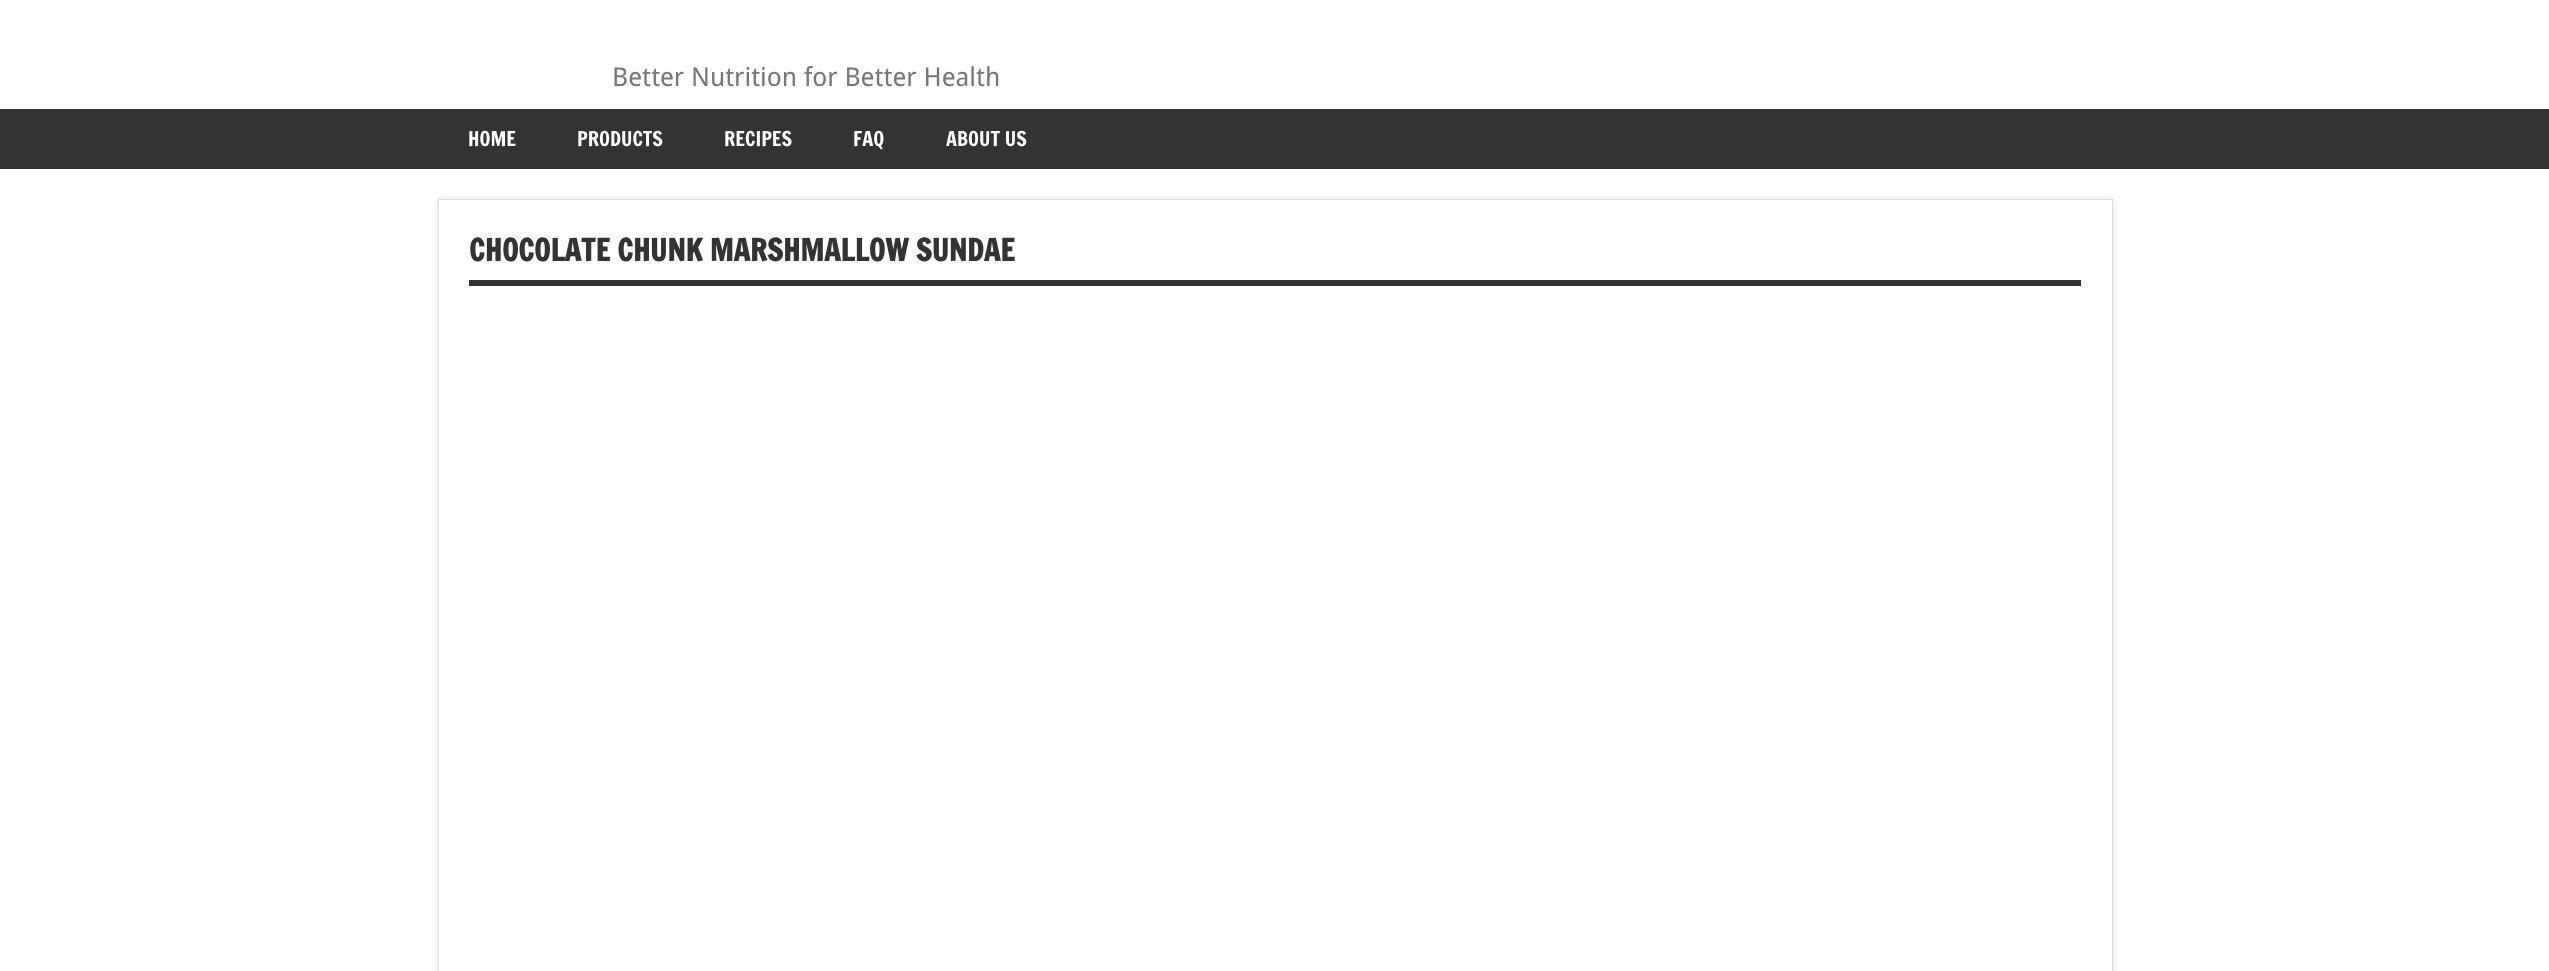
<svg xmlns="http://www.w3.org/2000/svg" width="2549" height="971">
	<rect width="100%" height="100%" fill="#FFFFFF" />
	<text x="612" y="86" font-family="Droid Sans" font-size="26" fill="#777777">Better Nutrition for Better Health</text>
	<rect x="0" y="109" width="2549" height="60" fill="#333333" />
	<g font-family="Francois One" font-size="20" fill="#FFFFFF">
		<text x="468" y="146">HOME</text>
		<text x="577" y="146">PRODUCTS</text>
		<text x="724" y="146">RECIPES</text>
		<text x="853" y="146">FAQ</text>
		<text x="946" y="146">ABOUT US</text>
	</g>
	<rect x="438" y="199" width="1675" height="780" fill="#DDDDDD" filter="blur(2.5px)" />
	<rect x="438.5" y="199.5" width="1674" height="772" fill="#FFFFFF" stroke="#DDDDDD" />
	<rect x="469" y="280" width="1612" height="6" fill="#333333" />
	<text x="469" y="261" font-family="Francois One" font-size="30" font-weight="700" fill="#333333">CHOCOLATE CHUNK MARSHMALLOW SUNDAE</text>
</svg>
